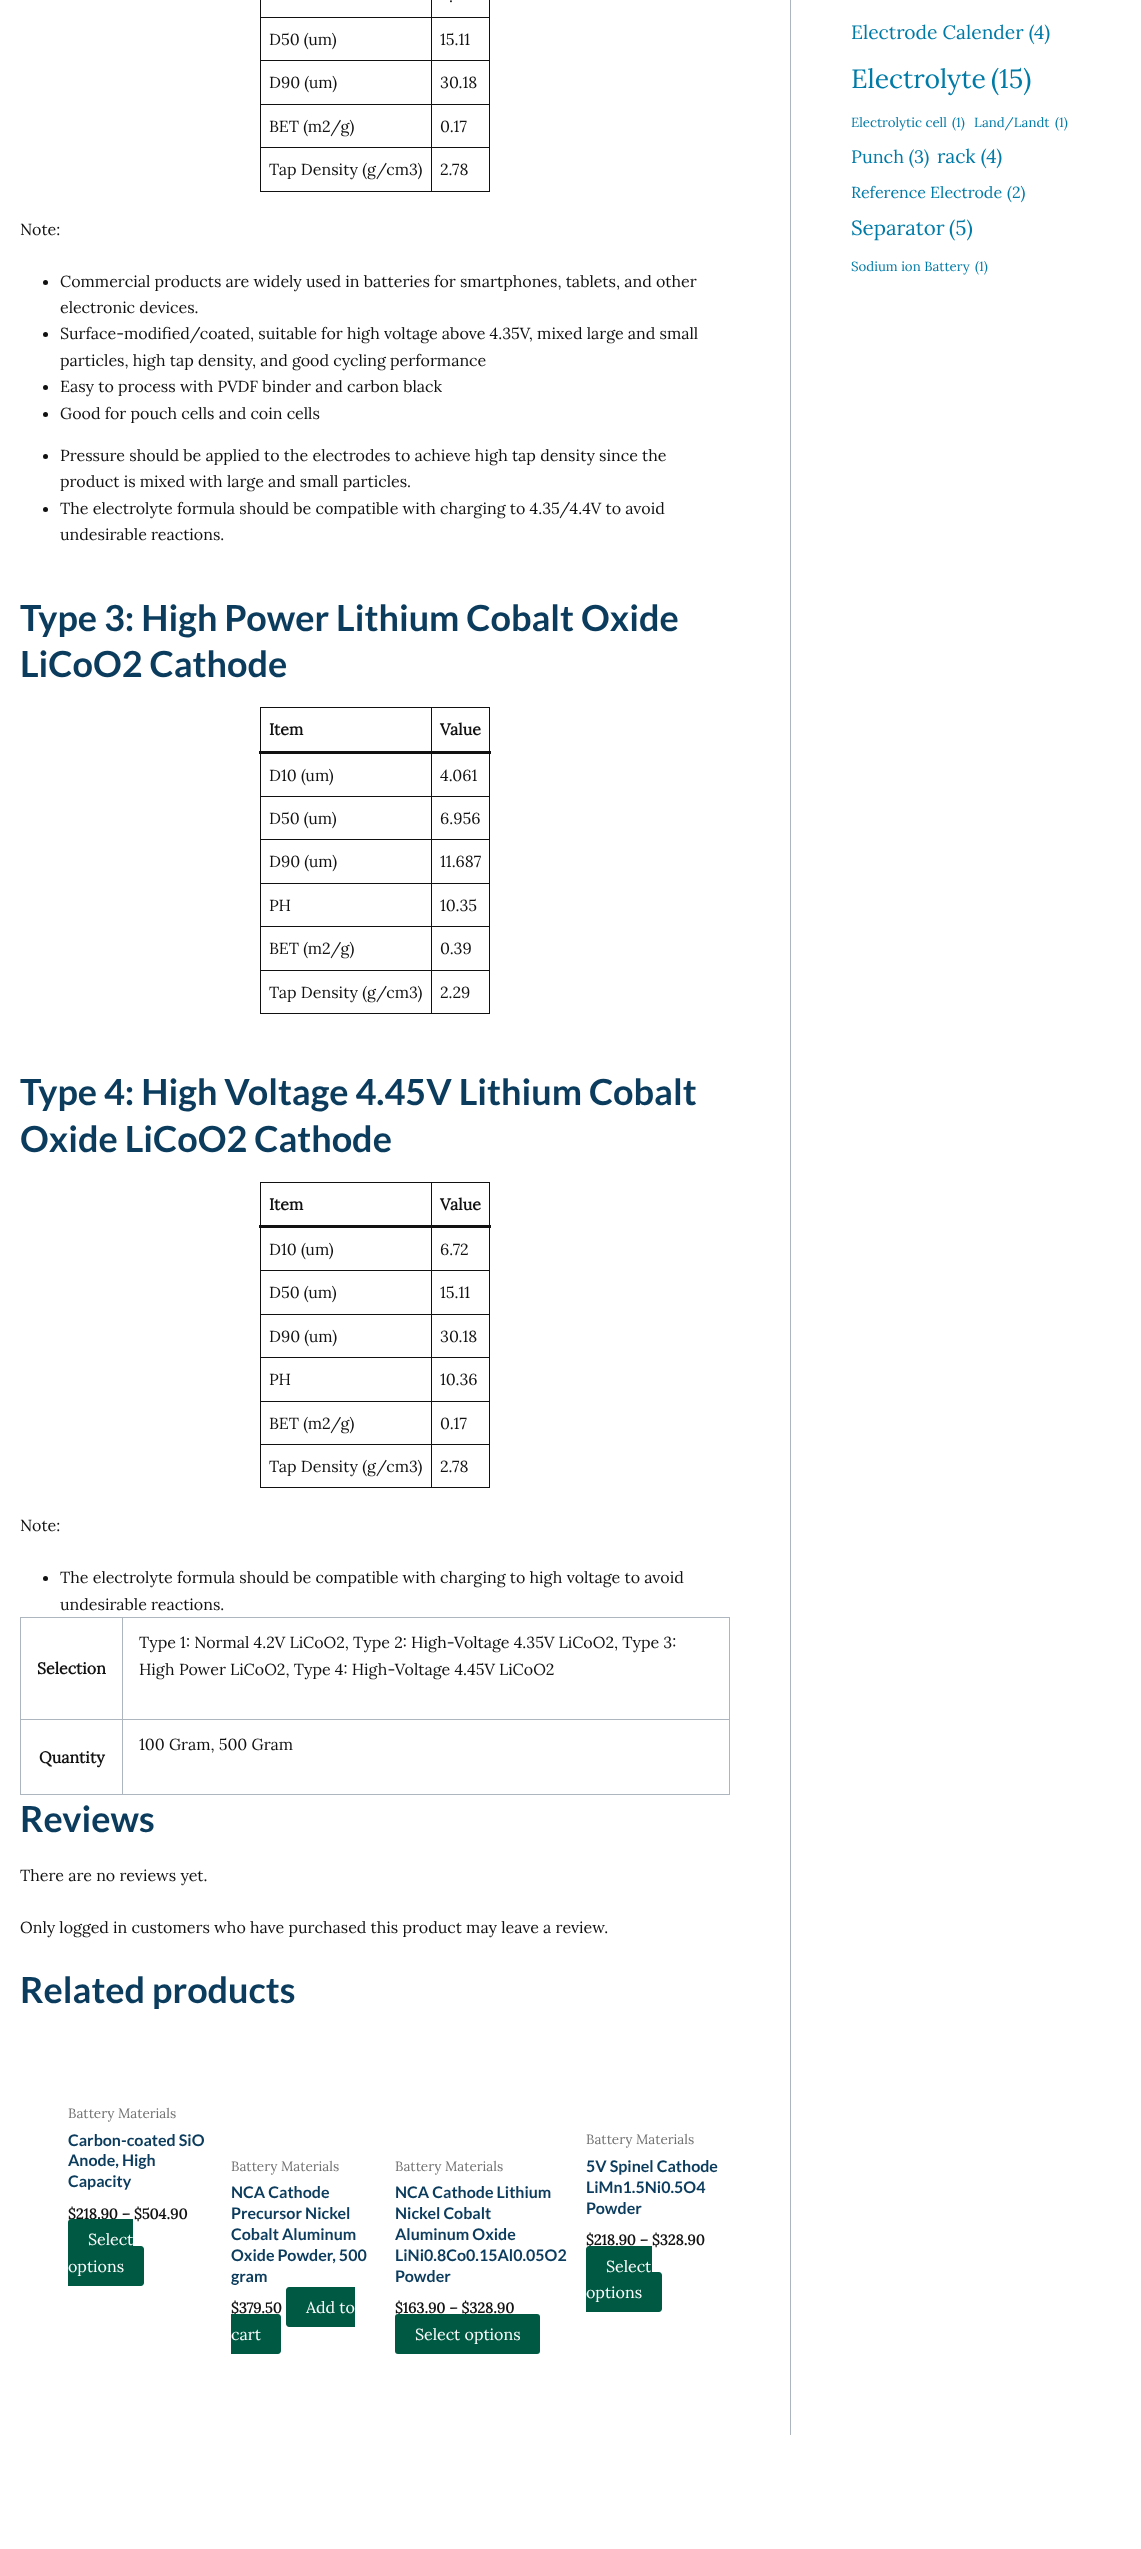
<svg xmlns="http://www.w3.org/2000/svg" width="1141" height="2549">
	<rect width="100%" height="100%" fill="#FFFFFF" />
	<rect x="431" y="17" width="59" height="1" fill="#111111" />
	<rect x="431" y="60" width="59" height="1" fill="#111111" />
	<rect x="431" y="104" width="59" height="1" fill="#111111" />
	<rect x="431" y="147" width="59" height="1" fill="#111111" />
	<rect x="489" y="147" width="1" height="45" fill="#111111" />
	<rect x="431" y="191" width="59" height="1" fill="#111111" />
	<rect x="431" y="147" width="1" height="45" fill="#111111" />
	<rect x="260" y="147" width="172" height="1" fill="#111111" />
	<rect x="431" y="104" width="1" height="44" fill="#111111" />
	<rect x="260" y="104" width="172" height="1" fill="#111111" />
	<rect x="431" y="60" width="1" height="45" fill="#111111" />
	<rect x="260" y="60" width="172" height="1" fill="#111111" />
	<rect x="431" y="17" width="1" height="44" fill="#111111" />
	<rect x="260" y="17" width="172" height="1" fill="#111111" />
	<rect x="431" y="0" width="1" height="18" fill="#111111" />
	<text x="449" y="2" font-family="Lora" font-size="16" fill="#111111">.</text>
	<rect x="260" y="191" width="172" height="1" fill="#111111" />
	<rect x="260" y="147" width="1" height="45" fill="#111111" />
	<rect x="260" y="104" width="1" height="44" fill="#111111" />
	<rect x="260" y="60" width="1" height="45" fill="#111111" />
	<rect x="260" y="0" width="1" height="61" fill="#111111" />
	<text x="269" y="45" font-family="Lora" font-size="16" fill="#111111">D50 (um)</text>
	<rect x="489" y="104" width="1" height="44" fill="#111111" />
	<rect x="489" y="60" width="1" height="45" fill="#111111" />
	<rect x="489" y="0" width="1" height="61" fill="#111111" />
	<g font-family="Lora" font-size="16" fill="#111111">
		<text x="440" y="45">15.11</text>
		<text x="269" y="88">D90 (um)</text>
		<text x="440" y="88">30.18</text>
		<text x="269" y="132">BET (m2/g)</text>
		<text x="440" y="132">0.17</text>
		<text x="269" y="175">Tap Density (g/cm3)</text>
		<text x="440" y="175">2.78</text>
		<text x="20" y="235">Note:</text>
	</g>
	<circle cx="45.5" cy="282.5" r="2.5" fill="#111111" />
	<g font-family="Lora" font-size="16" fill="#111111">
		<text x="60" y="287">Commercial products are widely used in batteries for smartphones, tablets, and other</text>
		<text x="60" y="313">electronic devices.</text>
	</g>
	<circle cx="45.5" cy="334.5" r="2.5" fill="#111111" />
	<g font-family="Lora" font-size="16" fill="#111111">
		<text x="60" y="339">Surface-modified/coated, suitable for high voltage above 4.35V, mixed large and small</text>
		<text x="60" y="366">particles, high tap density, and good cycling performance</text>
	</g>
	<circle cx="45.5" cy="387.5" r="2.5" fill="#111111" />
	<text x="60" y="392" font-family="Lora" font-size="16" fill="#111111">Easy to process with PVDF binder and carbon black</text>
	<circle cx="45.5" cy="414.5" r="2.5" fill="#111111" />
	<text x="60" y="419" font-family="Lora" font-size="16" fill="#111111">Good for pouch cells and coin cells</text>
	<circle cx="45.5" cy="456.5" r="2.5" fill="#111111" />
	<g font-family="Lora" font-size="16" fill="#111111">
		<text x="60" y="461">Pressure should be applied to the electrodes to achieve high tap density since the</text>
		<text x="60" y="487">product is mixed with large and small particles.</text>
	</g>
	<circle cx="45.5" cy="509.5" r="2.5" fill="#111111" />
	<g font-family="Lora" font-size="16" fill="#111111">
		<text x="60" y="514">The electrolyte formula should be compatible with charging to 4.35/4.4V to avoid</text>
		<text x="60" y="540">undesirable reactions.</text>
	</g>
	<g font-family="Lato" font-size="36" font-weight="700" fill="#0B3C5D">
		<text x="20" y="631">Type 3: High Power Lithium Cobalt Oxide</text>
		<text x="20" y="677">LiCoO2 Cathode</text>
	</g>
	<rect x="431" y="707" width="59" height="1" fill="#111111" />
	<rect x="431" y="796" width="59" height="1" fill="#111111" />
	<rect x="431" y="839" width="59" height="1" fill="#111111" />
	<rect x="431" y="883" width="59" height="1" fill="#111111" />
	<rect x="431" y="926" width="59" height="1" fill="#111111" />
	<rect x="431" y="970" width="59" height="1" fill="#111111" />
	<rect x="489" y="970" width="1" height="44" fill="#111111" />
	<rect x="431" y="1013" width="59" height="1" fill="#111111" />
	<rect x="431" y="970" width="1" height="44" fill="#111111" />
	<rect x="260" y="970" width="172" height="1" fill="#111111" />
	<rect x="431" y="926" width="1" height="45" fill="#111111" />
	<rect x="260" y="926" width="172" height="1" fill="#111111" />
	<rect x="431" y="883" width="1" height="44" fill="#111111" />
	<rect x="260" y="883" width="172" height="1" fill="#111111" />
	<rect x="431" y="839" width="1" height="45" fill="#111111" />
	<rect x="260" y="839" width="172" height="1" fill="#111111" />
	<rect x="431" y="796" width="1" height="44" fill="#111111" />
	<rect x="260" y="796" width="172" height="1" fill="#111111" />
	<rect x="431" y="752" width="1" height="45" fill="#111111" />
	<rect x="431" y="707" width="1" height="46" fill="#111111" />
	<rect x="260" y="707" width="172" height="1" fill="#111111" />
	<rect x="260" y="1013" width="172" height="1" fill="#111111" />
	<rect x="260" y="970" width="1" height="44" fill="#111111" />
	<rect x="260" y="926" width="1" height="45" fill="#111111" />
	<rect x="260" y="883" width="1" height="44" fill="#111111" />
	<rect x="260" y="839" width="1" height="45" fill="#111111" />
	<rect x="260" y="752" width="1" height="88" fill="#111111" />
	<rect x="260" y="707" width="1" height="46" fill="#111111" />
	<rect x="489" y="926" width="1" height="45" fill="#111111" />
	<rect x="489" y="883" width="1" height="44" fill="#111111" />
	<rect x="489" y="839" width="1" height="45" fill="#111111" />
	<rect x="489" y="752" width="1" height="88" fill="#111111" />
	<rect x="489" y="707" width="1" height="46" fill="#111111" />
	<rect x="259" y="751" width="232" height="3" fill="#111111" />
	<g font-family="Lora" font-size="16" font-weight="700" fill="#111111">
		<text x="269" y="735">Item</text>
		<text x="440" y="735">Value</text>
	</g>
	<g font-family="Lora" font-size="16" fill="#111111">
		<text x="269" y="781">D10 (um)</text>
		<text x="440" y="781">4.061</text>
		<text x="269" y="824">D50 (um)</text>
		<text x="440" y="824">6.956</text>
		<text x="269" y="867">D90 (um)</text>
		<text x="440" y="867">11.687</text>
		<text x="269" y="911">PH</text>
		<text x="440" y="911">10.35</text>
		<text x="269" y="954">BET (m2/g)</text>
		<text x="440" y="954">0.39</text>
		<text x="269" y="998">Tap Density (g/cm3)</text>
		<text x="440" y="998">2.29</text>
	</g>
	<g font-family="Lato" font-size="36" font-weight="700" fill="#0B3C5D">
		<text x="20" y="1105">Type 4: High Voltage 4.45V Lithium Cobalt</text>
		<text x="20" y="1152">Oxide LiCoO2 Cathode</text>
	</g>
	<rect x="431" y="1182" width="59" height="1" fill="#111111" />
	<rect x="431" y="1270" width="59" height="1" fill="#111111" />
	<rect x="431" y="1314" width="59" height="1" fill="#111111" />
	<rect x="431" y="1357" width="59" height="1" fill="#111111" />
	<rect x="431" y="1401" width="59" height="1" fill="#111111" />
	<rect x="431" y="1444" width="59" height="1" fill="#111111" />
	<rect x="489" y="1444" width="1" height="44" fill="#111111" />
	<rect x="431" y="1487" width="59" height="1" fill="#111111" />
	<rect x="431" y="1444" width="1" height="44" fill="#111111" />
	<rect x="260" y="1444" width="172" height="1" fill="#111111" />
	<rect x="431" y="1401" width="1" height="44" fill="#111111" />
	<rect x="260" y="1401" width="172" height="1" fill="#111111" />
	<rect x="431" y="1357" width="1" height="45" fill="#111111" />
	<rect x="260" y="1357" width="172" height="1" fill="#111111" />
	<rect x="431" y="1314" width="1" height="44" fill="#111111" />
	<rect x="260" y="1314" width="172" height="1" fill="#111111" />
	<rect x="431" y="1270" width="1" height="45" fill="#111111" />
	<rect x="260" y="1270" width="172" height="1" fill="#111111" />
	<rect x="431" y="1226" width="1" height="45" fill="#111111" />
	<rect x="431" y="1182" width="1" height="45" fill="#111111" />
	<rect x="260" y="1182" width="172" height="1" fill="#111111" />
	<rect x="260" y="1487" width="172" height="1" fill="#111111" />
	<rect x="260" y="1444" width="1" height="44" fill="#111111" />
	<rect x="260" y="1401" width="1" height="44" fill="#111111" />
	<rect x="260" y="1357" width="1" height="45" fill="#111111" />
	<rect x="260" y="1314" width="1" height="44" fill="#111111" />
	<rect x="260" y="1226" width="1" height="89" fill="#111111" />
	<rect x="260" y="1182" width="1" height="45" fill="#111111" />
	<rect x="489" y="1401" width="1" height="44" fill="#111111" />
	<rect x="489" y="1357" width="1" height="45" fill="#111111" />
	<rect x="489" y="1314" width="1" height="44" fill="#111111" />
	<rect x="489" y="1226" width="1" height="89" fill="#111111" />
	<rect x="489" y="1182" width="1" height="45" fill="#111111" />
	<rect x="259" y="1225" width="232" height="3" fill="#111111" />
	<g font-family="Lora" font-size="16" font-weight="700" fill="#111111">
		<text x="269" y="1210">Item</text>
		<text x="440" y="1210">Value</text>
	</g>
	<g font-family="Lora" font-size="16" fill="#111111">
		<text x="269" y="1255">D10 (um)</text>
		<text x="440" y="1255">6.72</text>
		<text x="269" y="1298">D50 (um)</text>
		<text x="440" y="1298">15.11</text>
		<text x="269" y="1342">D90 (um)</text>
		<text x="440" y="1342">30.18</text>
		<text x="269" y="1385">PH</text>
		<text x="440" y="1385">10.36</text>
		<text x="269" y="1429">BET (m2/g)</text>
		<text x="440" y="1429">0.17</text>
		<text x="269" y="1472">Tap Density (g/cm3)</text>
		<text x="440" y="1472">2.78</text>
		<text x="20" y="1531">Note:</text>
	</g>
	<circle cx="45.5" cy="1578.5" r="2.5" fill="#111111" />
	<g font-family="Lora" font-size="16" fill="#111111">
		<text x="60" y="1583">The electrolyte formula should be compatible with charging to high voltage to avoid</text>
		<text x="60" y="1610">undesirable reactions.</text>
	</g>
	<rect x="20" y="1617" width="710" height="1" fill="#ADB6BE" />
	<rect x="20" y="1617" width="1" height="178" fill="#ADB6BE" />
	<rect x="122" y="1618" width="1" height="177" fill="#ADB6BE" />
	<rect x="21" y="1719" width="102" height="1" fill="#ADB6BE" />
	<text x="37" y="1674" font-family="Lora" font-size="16" font-weight="700" fill="#111111">Selection</text>
	<rect x="729" y="1618" width="1" height="177" fill="#ADB6BE" />
	<rect x="123" y="1719" width="607" height="1" fill="#ADB6BE" />
	<g font-family="Lora" font-size="16" fill="#111111">
		<text x="139" y="1648">Type 1: Normal 4.2V LiCoO2, Type 2: High-Voltage 4.35V LiCoO2, Type 3:</text>
		<text x="139" y="1675">High Power LiCoO2, Type 4: High-Voltage 4.45V LiCoO2</text>
		<text x="139" y="1750">100 Gram, 500 Gram</text>
	</g>
	<rect x="21" y="1794" width="709" height="1" fill="#ADB6BE" />
	<text x="39" y="1763" font-family="Lora" font-size="16" font-weight="700" fill="#111111">Quantity</text>
	<text x="20" y="1832" font-family="Lato" font-size="36" font-weight="700" fill="#0B3C5D">Reviews</text>
	<g font-family="Lora" font-size="16" fill="#111111">
		<text x="20" y="1881">There are no reviews yet.</text>
		<text x="20" y="1933">Only logged in customers who have purchased this product may leave a review.</text>
	</g>
	<text x="20" y="2003" font-family="Lato" font-size="36" font-weight="700" fill="#0B3C5D">Related products</text>
	<text x="68" y="2118" font-family="Lora" font-size="13.5" fill="#707070">Battery Materials</text>
	<g font-family="Lato" font-size="16" font-weight="700" fill="#0B3C5D">
		<text x="68" y="2146">Carbon-coated SiO</text>
		<text x="68" y="2166">Anode, High</text>
		<text x="68" y="2187">Capacity</text>
	</g>
	<text x="68" y="2219" font-family="Lora" font-size="14.5" font-weight="700" fill="#111111">$218.90 – $504.90</text>
	<path d="M71 2219H133V2259H71C69.5 2259 68 2257.5 68 2256V2222C68 2220.5 69.5 2219 71 2219Z" fill="#005A43" />
	<text x="88" y="2245" font-family="Lora" font-size="16" fill="#FFFFFF">Select</text>
	<path d="M68 2246H141C142.5 2246 144 2247.5 144 2249V2283C144 2284.5 142.5 2286 141 2286H68Z" fill="#005A43" />
	<text x="68" y="2272" font-family="Lora" font-size="16" fill="#FFFFFF">options</text>
	<text x="231" y="2171" font-family="Lora" font-size="13.5" fill="#707070">Battery Materials</text>
	<g font-family="Lato" font-size="16" font-weight="700" fill="#0B3C5D">
		<text x="231" y="2198">NCA Cathode</text>
		<text x="231" y="2219">Precursor Nickel</text>
		<text x="231" y="2240">Cobalt Aluminum</text>
		<text x="231" y="2261">Oxide Powder, 500</text>
		<text x="231" y="2282">gram</text>
	</g>
	<text x="231" y="2313" font-family="Lora" font-size="14.5" font-weight="700" fill="#111111">$379.50</text>
	<path d="M289 2287H355V2327H289C287.5 2327 286 2325.5 286 2324V2290C286 2288.5 287.5 2287 289 2287Z" fill="#005A43" />
	<text x="306" y="2313" font-family="Lora" font-size="16" fill="#FFFFFF">Add to</text>
	<path d="M231 2314H278C279.5 2314 281 2315.5 281 2317V2351C281 2352.5 279.5 2354 278 2354H231Z" fill="#005A43" />
	<text x="231" y="2340" font-family="Lora" font-size="16" fill="#FFFFFF">cart</text>
	<text x="395" y="2171" font-family="Lora" font-size="13.5" fill="#707070">Battery Materials</text>
	<g font-family="Lato" font-size="16" font-weight="700" fill="#0B3C5D">
		<text x="395" y="2198">NCA Cathode Lithium</text>
		<text x="395" y="2219">Nickel Cobalt</text>
		<text x="395" y="2240">Aluminum Oxide</text>
		<text x="395" y="2261">LiNi0.8Co0.15Al0.05O2</text>
		<text x="395" y="2282">Powder</text>
	</g>
	<text x="395" y="2313" font-family="Lora" font-size="14.5" font-weight="700" fill="#111111">$163.90 – $328.90</text>
	<rect x="395" y="2314" width="145" height="40" rx="3" fill="#005A43" />
	<text x="415" y="2340" font-family="Lora" font-size="16" fill="#FFFFFF">Select options</text>
	<text x="586" y="2144" font-family="Lora" font-size="13.5" fill="#707070">Battery Materials</text>
	<g font-family="Lato" font-size="16" font-weight="700" fill="#0B3C5D">
		<text x="586" y="2172">5V Spinel Cathode</text>
		<text x="586" y="2193">LiMn1.5Ni0.5O4</text>
		<text x="586" y="2214">Powder</text>
	</g>
	<text x="586" y="2245" font-family="Lora" font-size="14.5" font-weight="700" fill="#111111">$218.90 – $328.90</text>
	<path d="M589 2246H652V2286H589C587.5 2286 586 2284.5 586 2283V2249C586 2247.5 587.5 2246 589 2246Z" fill="#005A43" />
	<path d="M586 2272H659C660.5 2272 662 2273.5 662 2275V2309C662 2310.5 660.5 2312 659 2312H586Z" fill="#005A43" />
	<g font-family="Lora" font-size="16" fill="#FFFFFF">
		<text x="606" y="2272">Select</text>
		<text x="586" y="2298">options</text>
	</g>
	<rect x="790" y="0" width="1" height="2435" fill="#ADB6BE" />
	<text x="851" y="39" font-family="Lora" font-size="19.25" fill="#007BA7">Electrode Calender (4)</text>
	<g font-family="Lora" font-size="26.5" fill="#007BA7">
		<text x="851" y="88">Electrolyte</text>
		<text x="991" y="88">(15)</text>
	</g>
	<g font-family="Lora" font-size="13.25" fill="#007BA7">
		<text x="851" y="127">Electrolytic cell</text>
		<text x="952" y="127">(1)</text>
		<text x="974" y="127">Land/Landt</text>
		<text x="1055" y="127">(1)</text>
	</g>
	<text x="851" y="163" font-family="Lora" font-size="18" fill="#007BA7">Punch (3)</text>
	<text x="937" y="163" font-family="Lora" font-size="19.25" fill="#007BA7">rack (4)</text>
	<g font-family="Lora" font-size="16" fill="#007BA7">
		<text x="851" y="198">Reference Electrode</text>
		<text x="1007" y="198">(2)</text>
	</g>
	<g font-family="Lora" font-size="20.5" fill="#007BA7">
		<text x="851" y="235">Separator</text>
		<text x="949" y="235">(5)</text>
	</g>
	<g font-family="Lora" font-size="13.25" fill="#007BA7">
		<text x="851" y="271">Sodium ion Battery</text>
		<text x="975" y="271">(1)</text>
	</g>
</svg>
